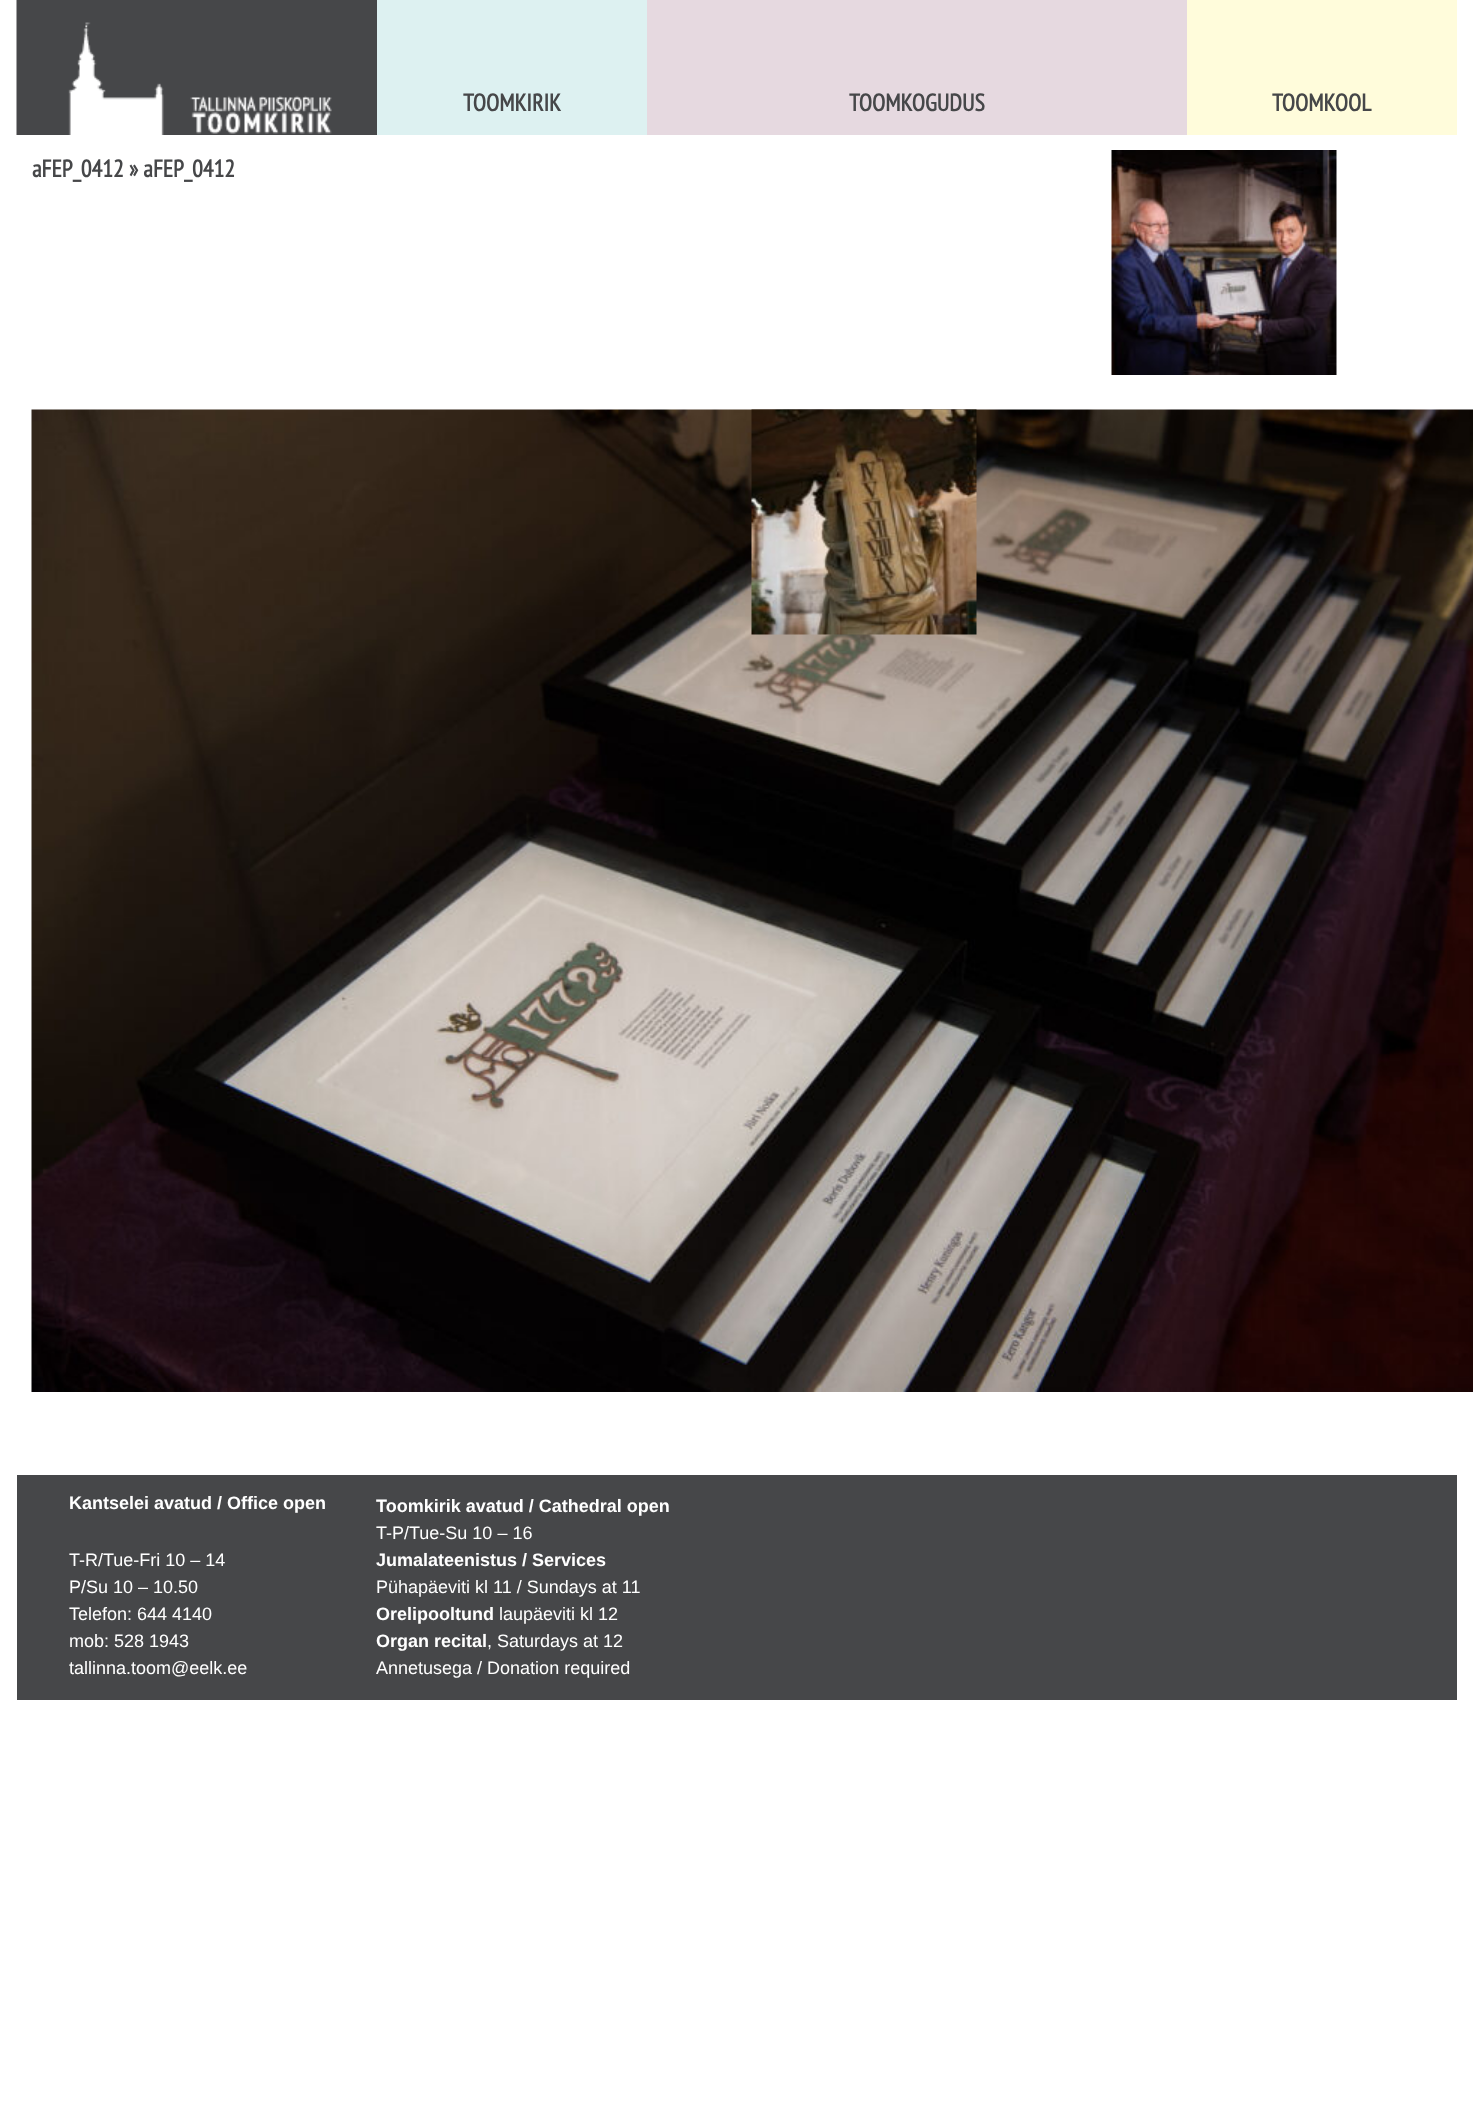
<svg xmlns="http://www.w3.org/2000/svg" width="1473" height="2108">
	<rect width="100%" height="100%" fill="#FFFFFF" />
	<rect x="332" y="0" width="45" height="135" fill="#464749" />
	<image x="16" y="0" width="316" height="135" href="assets/img1.png" />
	<rect x="377" y="0" width="270" height="135" fill="#DDF1F1" />
	<text x="463" y="111" font-family="PT Sans Narrow" font-size="24" font-weight="700" fill="#464749">TOOMKIRIK</text>
	<rect x="647" y="0" width="540" height="135" fill="#E6D9E0" />
	<text x="849" y="111" font-family="PT Sans Narrow" font-size="24" font-weight="700" fill="#464749">TOOMKOGUDUS</text>
	<rect x="1187" y="0" width="270" height="135" fill="#FFFCDB" />
	<g font-family="PT Sans Narrow" font-size="24" font-weight="700" fill="#464749">
		<text x="1272" y="111">TOOMKOOL</text>
		<text x="32" y="177">aFEP_0412 » aFEP_0412</text>
	</g>
	<image x="1111" y="150" width="226" height="225" href="assets/img2.png" />
	<image x="31" y="409" width="1442" height="983" href="assets/img3.png" />
	<image x="751" y="409" width="226" height="226" href="assets/img4.png" />
	<rect x="17" y="1475" width="1440" height="225" fill="#464749" />
	<text x="69" y="1509" font-family="Liberation Sans" font-size="18" font-weight="700" fill="#FFFFFF">Kantselei avatud / Office open</text>
	<g font-family="Liberation Sans" font-size="18" fill="#FFFFFF">
		<text x="69" y="1566">T-R/Tue-Fri 10 – 14</text>
		<text x="69" y="1593">P/Su 10 – 10.50</text>
		<text x="69" y="1620">Telefon: 644 4140</text>
		<text x="69" y="1647">mob: 528 1943</text>
		<text x="69" y="1674">tallinna.toom@eelk.ee</text>
	</g>
	<text x="376" y="1512" font-family="Liberation Sans" font-size="18" font-weight="700" fill="#FFFFFF">Toomkirik avatud / Cathedral open</text>
	<text x="376" y="1539" font-family="Liberation Sans" font-size="18" fill="#FFFFFF">T-P/Tue-Su 10 – 16</text>
	<text x="376" y="1566" font-family="Liberation Sans" font-size="18" font-weight="700" fill="#FFFFFF">Jumalateenistus / Services</text>
	<text x="376" y="1593" font-family="Liberation Sans" font-size="18" fill="#FFFFFF">Pühapäeviti kl 11 / Sundays at 11</text>
	<text x="376" y="1620" font-family="Liberation Sans" font-size="18" font-weight="700" fill="#FFFFFF">Orelipooltund</text>
	<text x="499" y="1620" font-family="Liberation Sans" font-size="18" fill="#FFFFFF">laupäeviti kl 12</text>
	<text x="376" y="1647" font-family="Liberation Sans" font-size="18" font-weight="700" fill="#FFFFFF">Organ recital</text>
	<g font-family="Liberation Sans" font-size="18" fill="#FFFFFF">
		<text x="487" y="1647">, Saturdays at 12</text>
		<text x="376" y="1674">Annetusega / Donation required</text>
	</g>
</svg>
